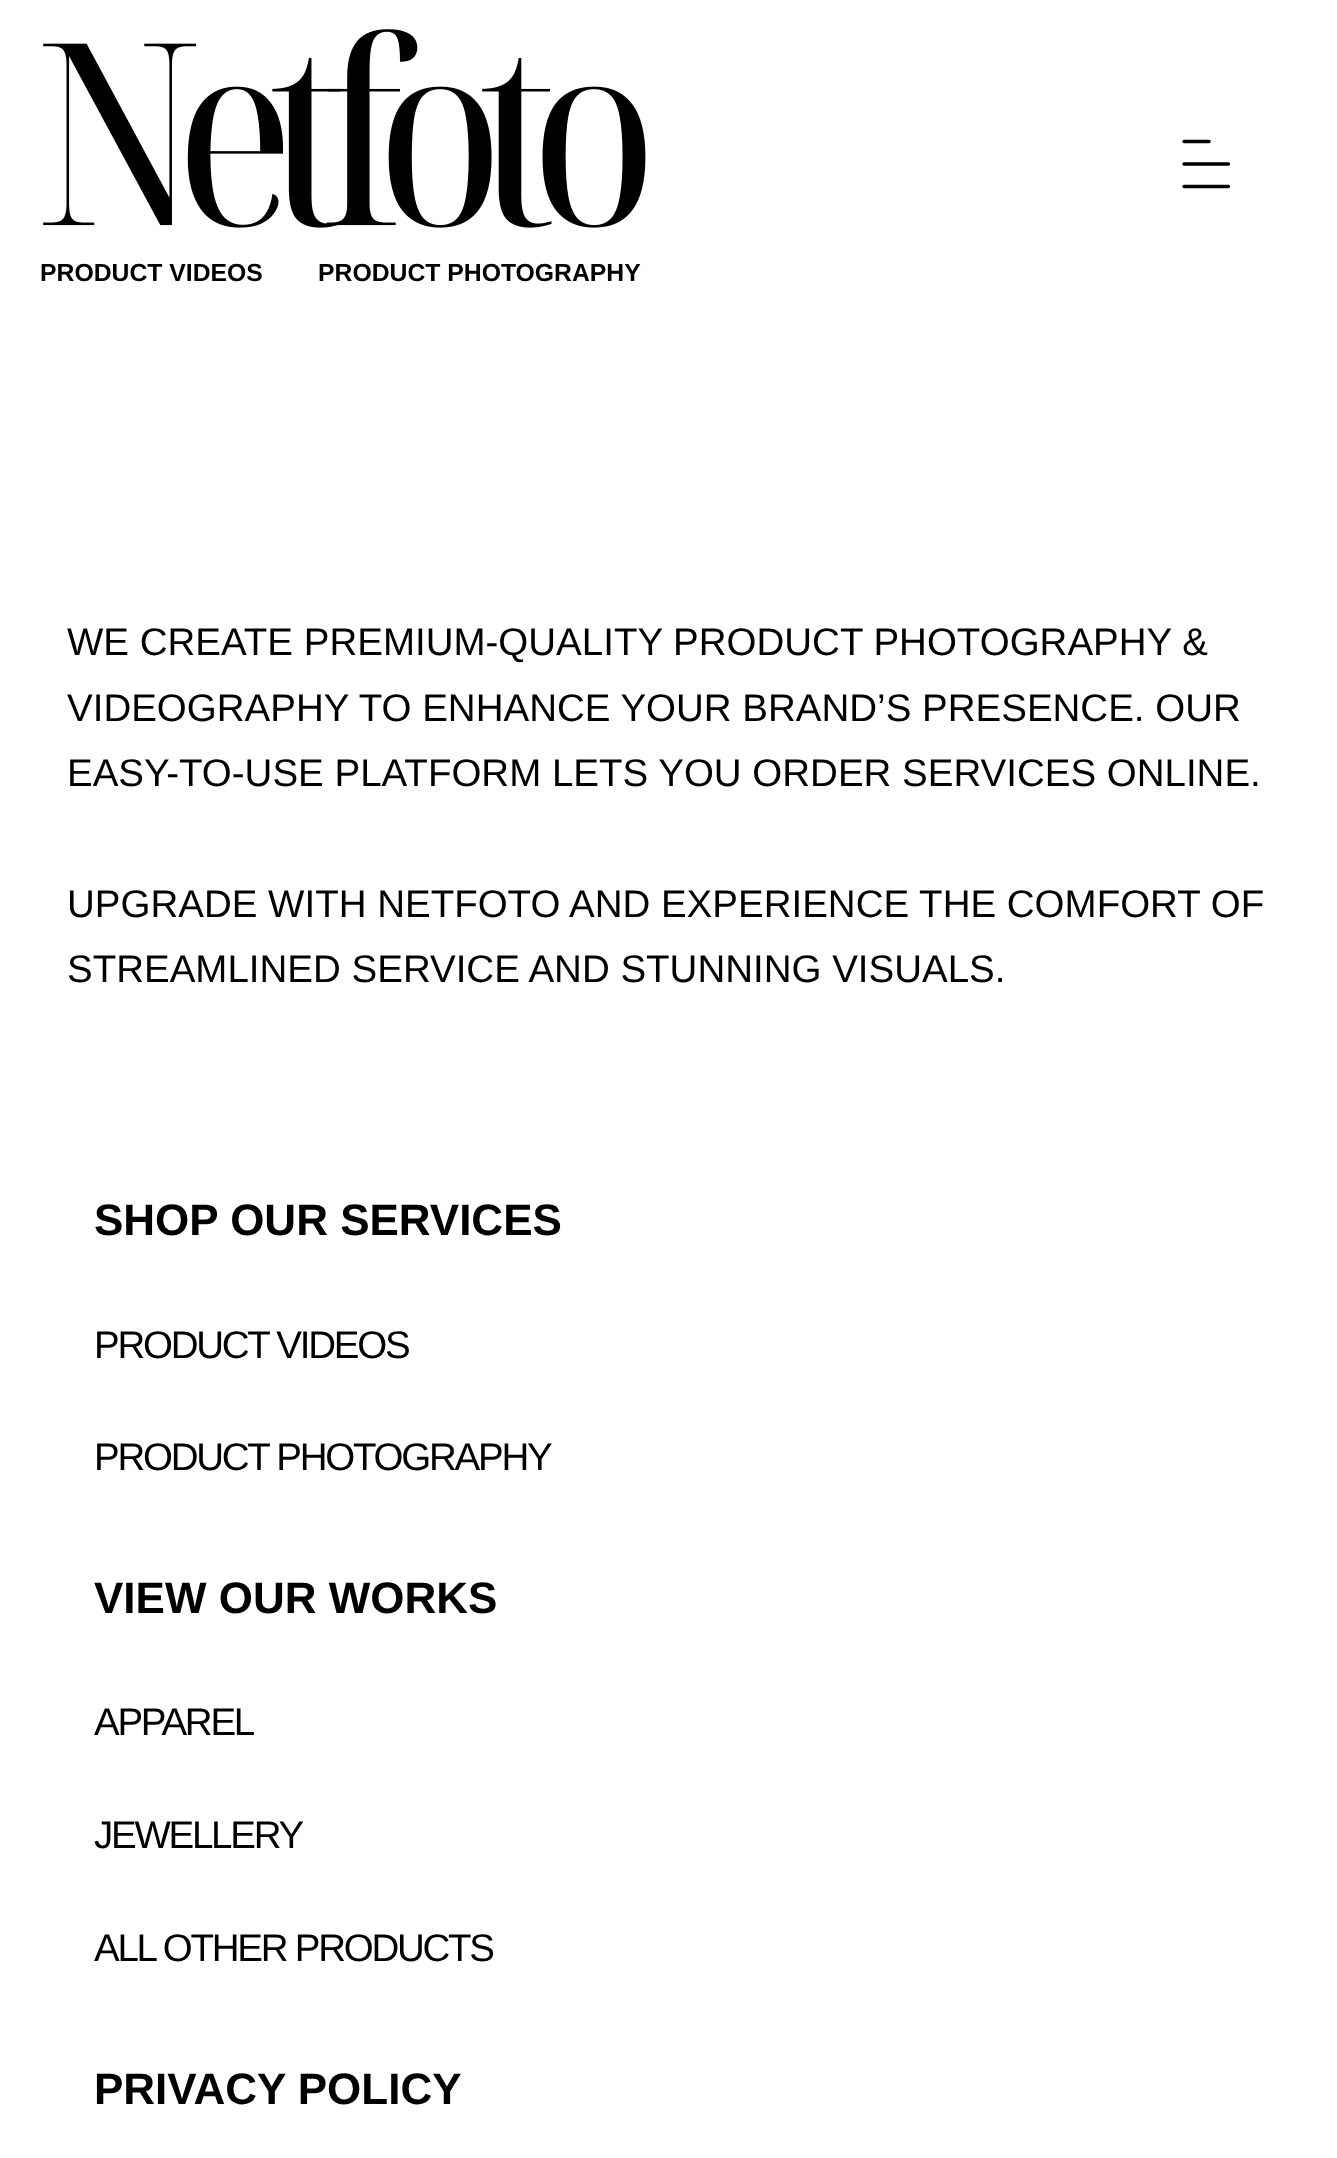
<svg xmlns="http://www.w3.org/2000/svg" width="1337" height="2158">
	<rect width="100%" height="100%" fill="#FFFFFF" />
	<path d="M1184 141.5H1209M1184 164H1228.5M1184 186.5H1228.5" fill="none" stroke="#000000" stroke-width="3.4" stroke-linecap="round" />
	<image x="43" y="29" width="603" height="199" href="assets/img1.png" />
	<g font-family="Liberation Sans" font-size="24.75" font-weight="700" fill="#000000">
		<text x="40" y="281">PRODUCT VIDEOS</text>
		<text x="318" y="281">PRODUCT PHOTOGRAPHY</text>
	</g>
	<g font-family="Liberation Sans" font-size="38.5" fill="#000000">
		<text x="67" y="655">WE CREATE PREMIUM-QUALITY PRODUCT PHOTOGRAPHY &amp;</text>
		<text x="67" y="721">VIDEOGRAPHY TO ENHANCE YOUR BRAND’S PRESENCE. OUR</text>
		<text x="67" y="786">EASY-TO-USE PLATFORM LETS YOU ORDER SERVICES ONLINE.</text>
		<text x="67" y="917">UPGRADE WITH NETFOTO AND EXPERIENCE THE COMFORT OF</text>
		<text x="67" y="982">STREAMLINED SERVICE AND STUNNING VISUALS.</text>
	</g>
	<text x="94" y="1235" font-family="Liberation Sans" font-size="44" font-weight="700" fill="#000000">SHOP OUR SERVICES</text>
	<g font-family="Liberation Sans" font-size="38.5" letter-spacing="-2.25" fill="#000000">
		<text x="94" y="1358">PRODUCT VIDEOS</text>
		<text x="94" y="1470">PRODUCT PHOTOGRAPHY</text>
	</g>
	<text x="94" y="1613" font-family="Liberation Sans" font-size="44" font-weight="700" fill="#000000">VIEW OUR WORKS</text>
	<g font-family="Liberation Sans" font-size="38.5" letter-spacing="-2.25" fill="#000000">
		<text x="94" y="1735">APPAREL</text>
		<text x="94" y="1848">JEWELLERY</text>
		<text x="94" y="1961">ALL OTHER PRODUCTS</text>
	</g>
	<text x="94" y="2104" font-family="Liberation Sans" font-size="44" font-weight="700" fill="#000000">PRIVACY POLICY</text>
</svg>
